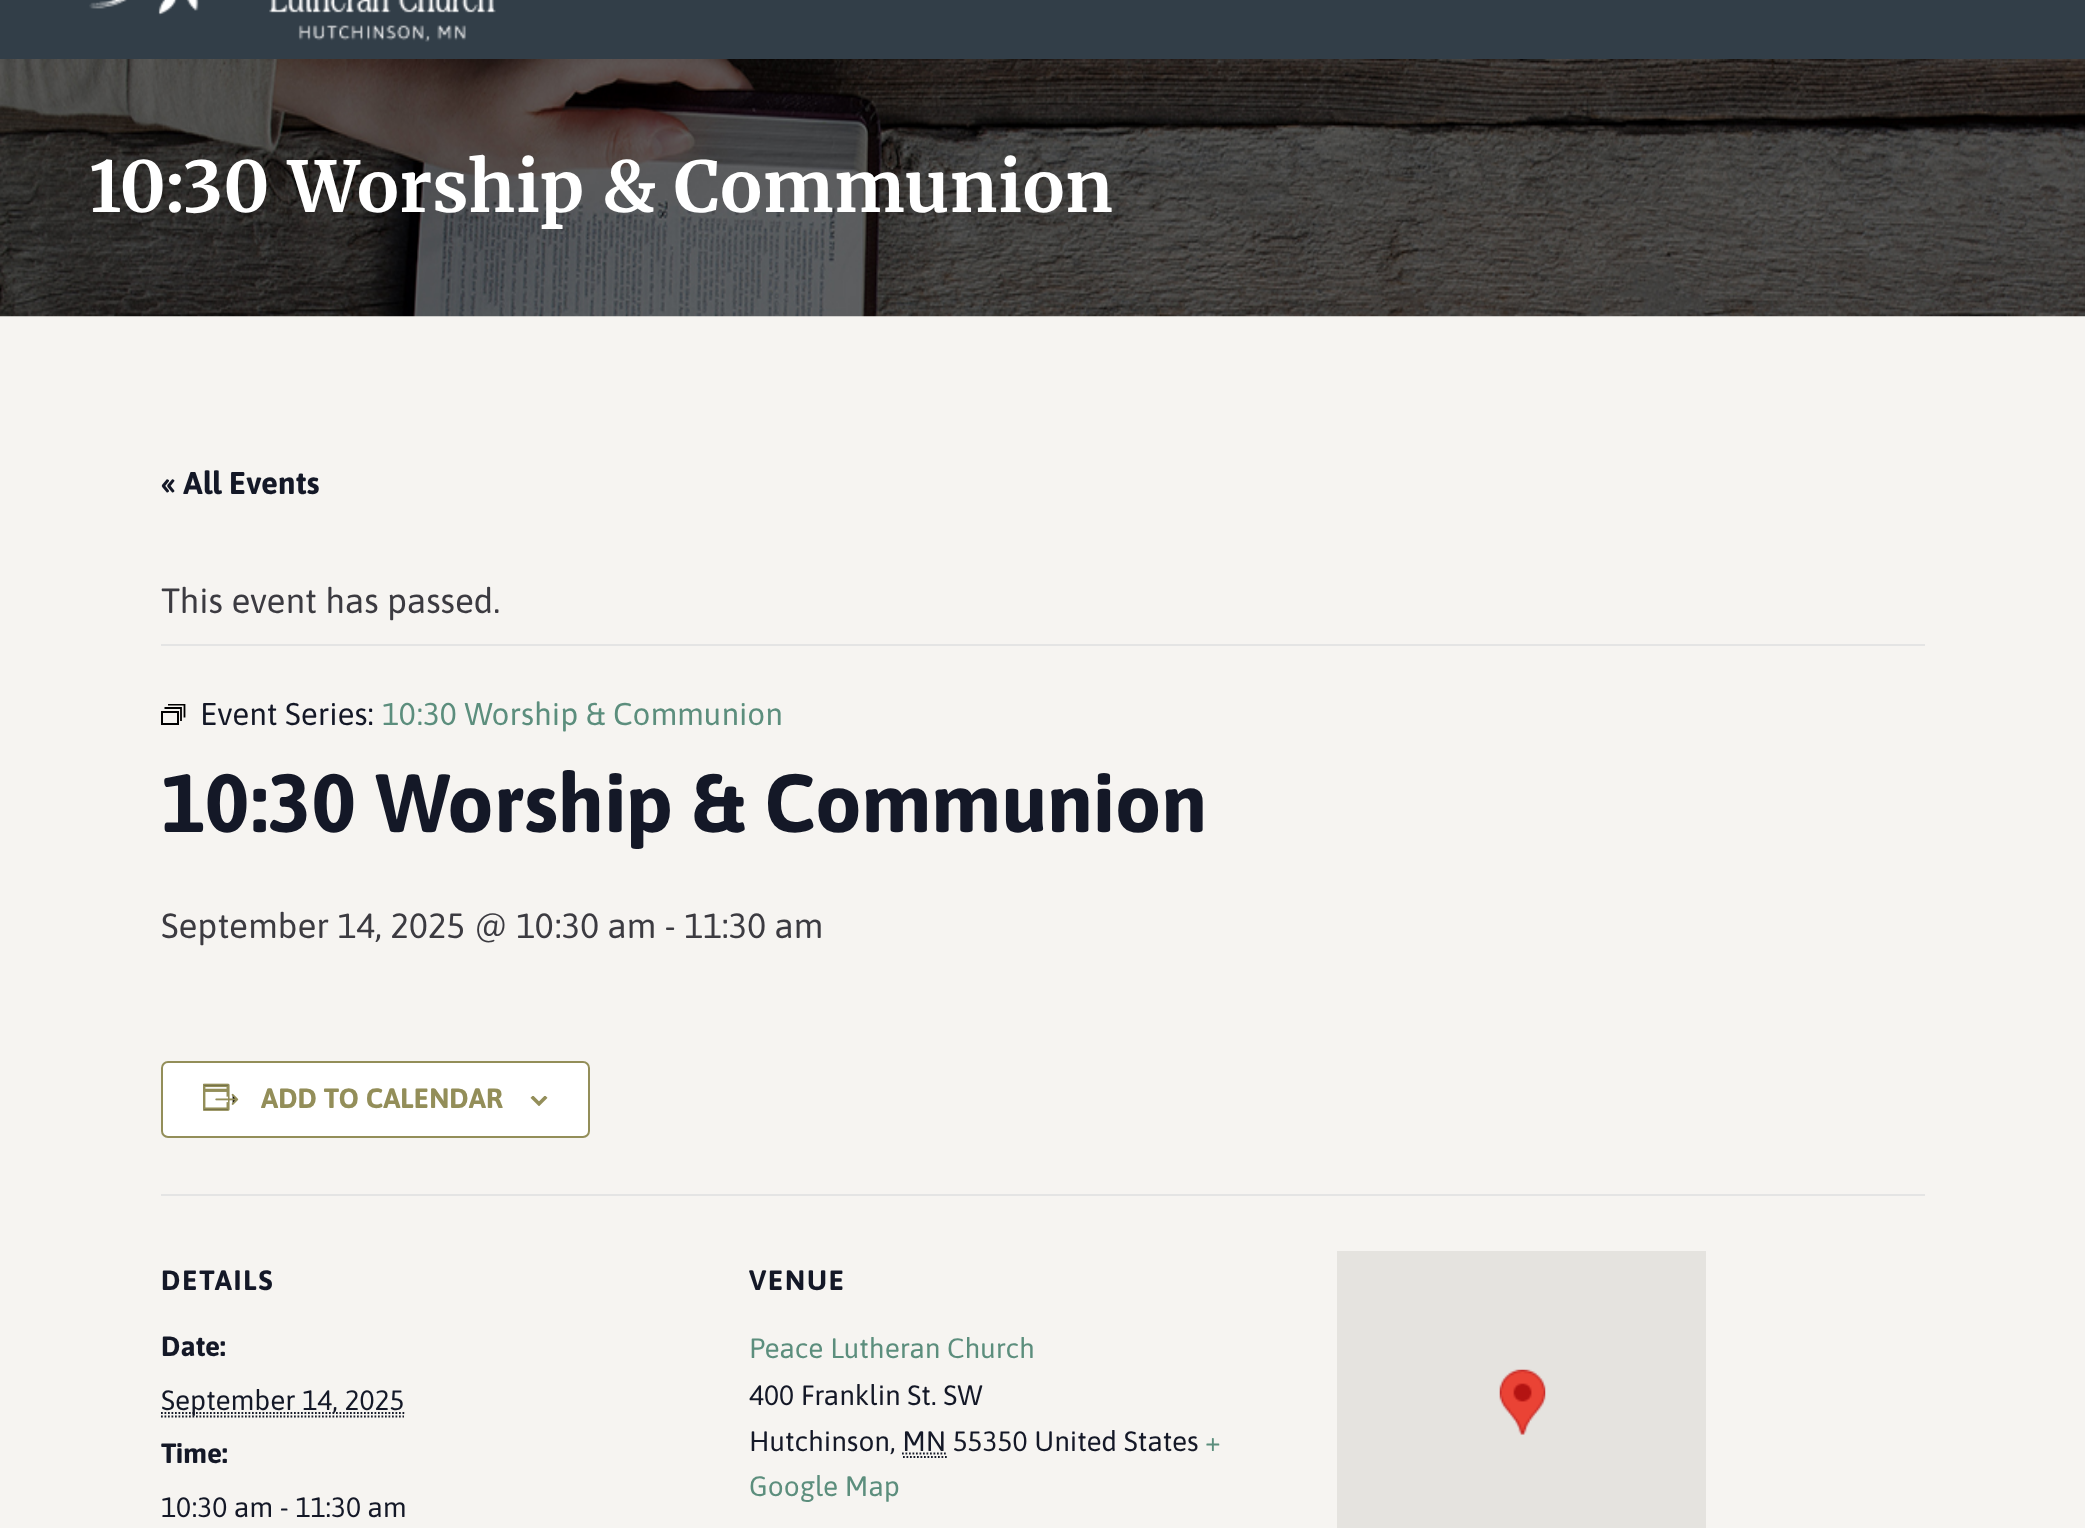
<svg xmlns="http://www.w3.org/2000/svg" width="2085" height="1528">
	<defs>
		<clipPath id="clip1"><rect x="161" y="704" width="25" height="21" /></clipPath>
	</defs>
	<rect width="100%" height="100%" fill="#F6F4F1" />
	<rect x="0" y="0" width="2085" height="59" fill="#323E48" />
	<image x="89" y="0" width="407" height="42" href="assets/img1.png" />
	<image x="0" y="59" width="2085" height="258" href="assets/img2.png" />
	<text x="89" y="212" font-family="Merriweather" font-size="70" font-weight="700" letter-spacing="0.9" fill="#FFFFFF">10:30 Worship &amp; Communion</text>
	<text x="161" y="494" font-family="Asap" font-size="31.5" font-weight="700" fill="#141827">« All Events</text>
	<rect x="161" y="644" width="1764" height="2" fill="#E4E4E4" />
	<text x="161" y="613" font-family="Asap" font-size="35" fill="#3C3B41">This event has passed.</text>
	<rect x="162" y="712" width="16" height="12" fill="none" stroke="#000000" stroke-width="2" />
	<path d="M164.5 708H181V721" fill="none" stroke="#000000" stroke-width="1.8" />
	<g clip-path="url(#clip1)">
		<path d="M168 704.5H184.5V717.5" fill="none" stroke="#000000" stroke-width="1.8" />
	</g>
	<text x="200" y="725" font-family="Asap" font-size="31.5" fill="#141827">Event Series:</text>
	<text x="382" y="725" font-family="Asap" font-size="31.5" fill="#5C8E7D">10:30 Worship &amp; Communion</text>
	<text x="161" y="832" font-family="Asap" font-size="82.25" font-weight="700" fill="#141827">10:30 Worship &amp; Communion</text>
	<text x="161" y="938" font-family="Asap" font-size="35" fill="#3C3B41">September 14, 2025 @ 10:30 am - 11:30 am</text>
	<rect x="162" y="1062" width="427" height="75" rx="6" fill="#FFFFFF" stroke="#938E59" stroke-width="2" />
	<image x="203" y="1083" width="36" height="28" href="assets/img3.png" />
	<text x="261" y="1108" font-family="Asap" font-size="28" font-weight="700" fill="#938E59">ADD TO CALENDAR</text>
	<image x="530" y="1096" width="18" height="10" href="assets/img4.png" />
	<rect x="161" y="1194" width="1764" height="2" fill="#E4E4E4" />
	<text x="161" y="1290" font-family="Asap" font-size="28" font-weight="700" letter-spacing="1.75" fill="#141827">DETAILS</text>
	<text x="161" y="1356" font-family="Asap" font-size="28" font-weight="700" fill="#141827">Date:</text>
	<path d="M161 1416.5H404" fill="none" stroke="#141827" stroke-width="1.8" stroke-dasharray="1.75 1.75" />
	<path d="M161 1413H404.5" fill="none" stroke="#141827" stroke-width="1.8" stroke-dasharray="1.75 1.75" />
	<text x="161" y="1410" font-family="Asap" font-size="28" fill="#141827">September 14, 2025</text>
	<text x="161" y="1463" font-family="Asap" font-size="28" font-weight="700" fill="#141827">Time:</text>
	<text x="161" y="1517" font-family="Asap" font-size="28" fill="#141827">10:30 am - 11:30 am</text>
	<text x="749" y="1290" font-family="Asap" font-size="28" font-weight="700" letter-spacing="1.75" fill="#141827">VENUE</text>
	<text x="749" y="1358" font-family="Asap" font-size="28" fill="#5C8E7D">Peace Lutheran Church</text>
	<g font-family="Asap" font-size="28" fill="#141827">
		<text x="749" y="1405">400 Franklin St. SW</text>
		<text x="749" y="1451">Hutchinson, MN 55350 United States</text>
	</g>
	<path d="M903 1457H947M902 1453.5H946" fill="none" stroke="#141827" stroke-width="1.8" stroke-dasharray="1.75 1.75" />
	<g font-family="Asap" font-size="28" fill="#5C8E7D">
		<text x="1205" y="1451">+</text>
		<text x="749" y="1496">Google Map</text>
	</g>
	<rect x="1337" y="1251" width="369" height="277" fill="#E5E3DF" />
	<image x="1499" y="1369" width="47" height="66" href="assets/img5.png" />
</svg>
